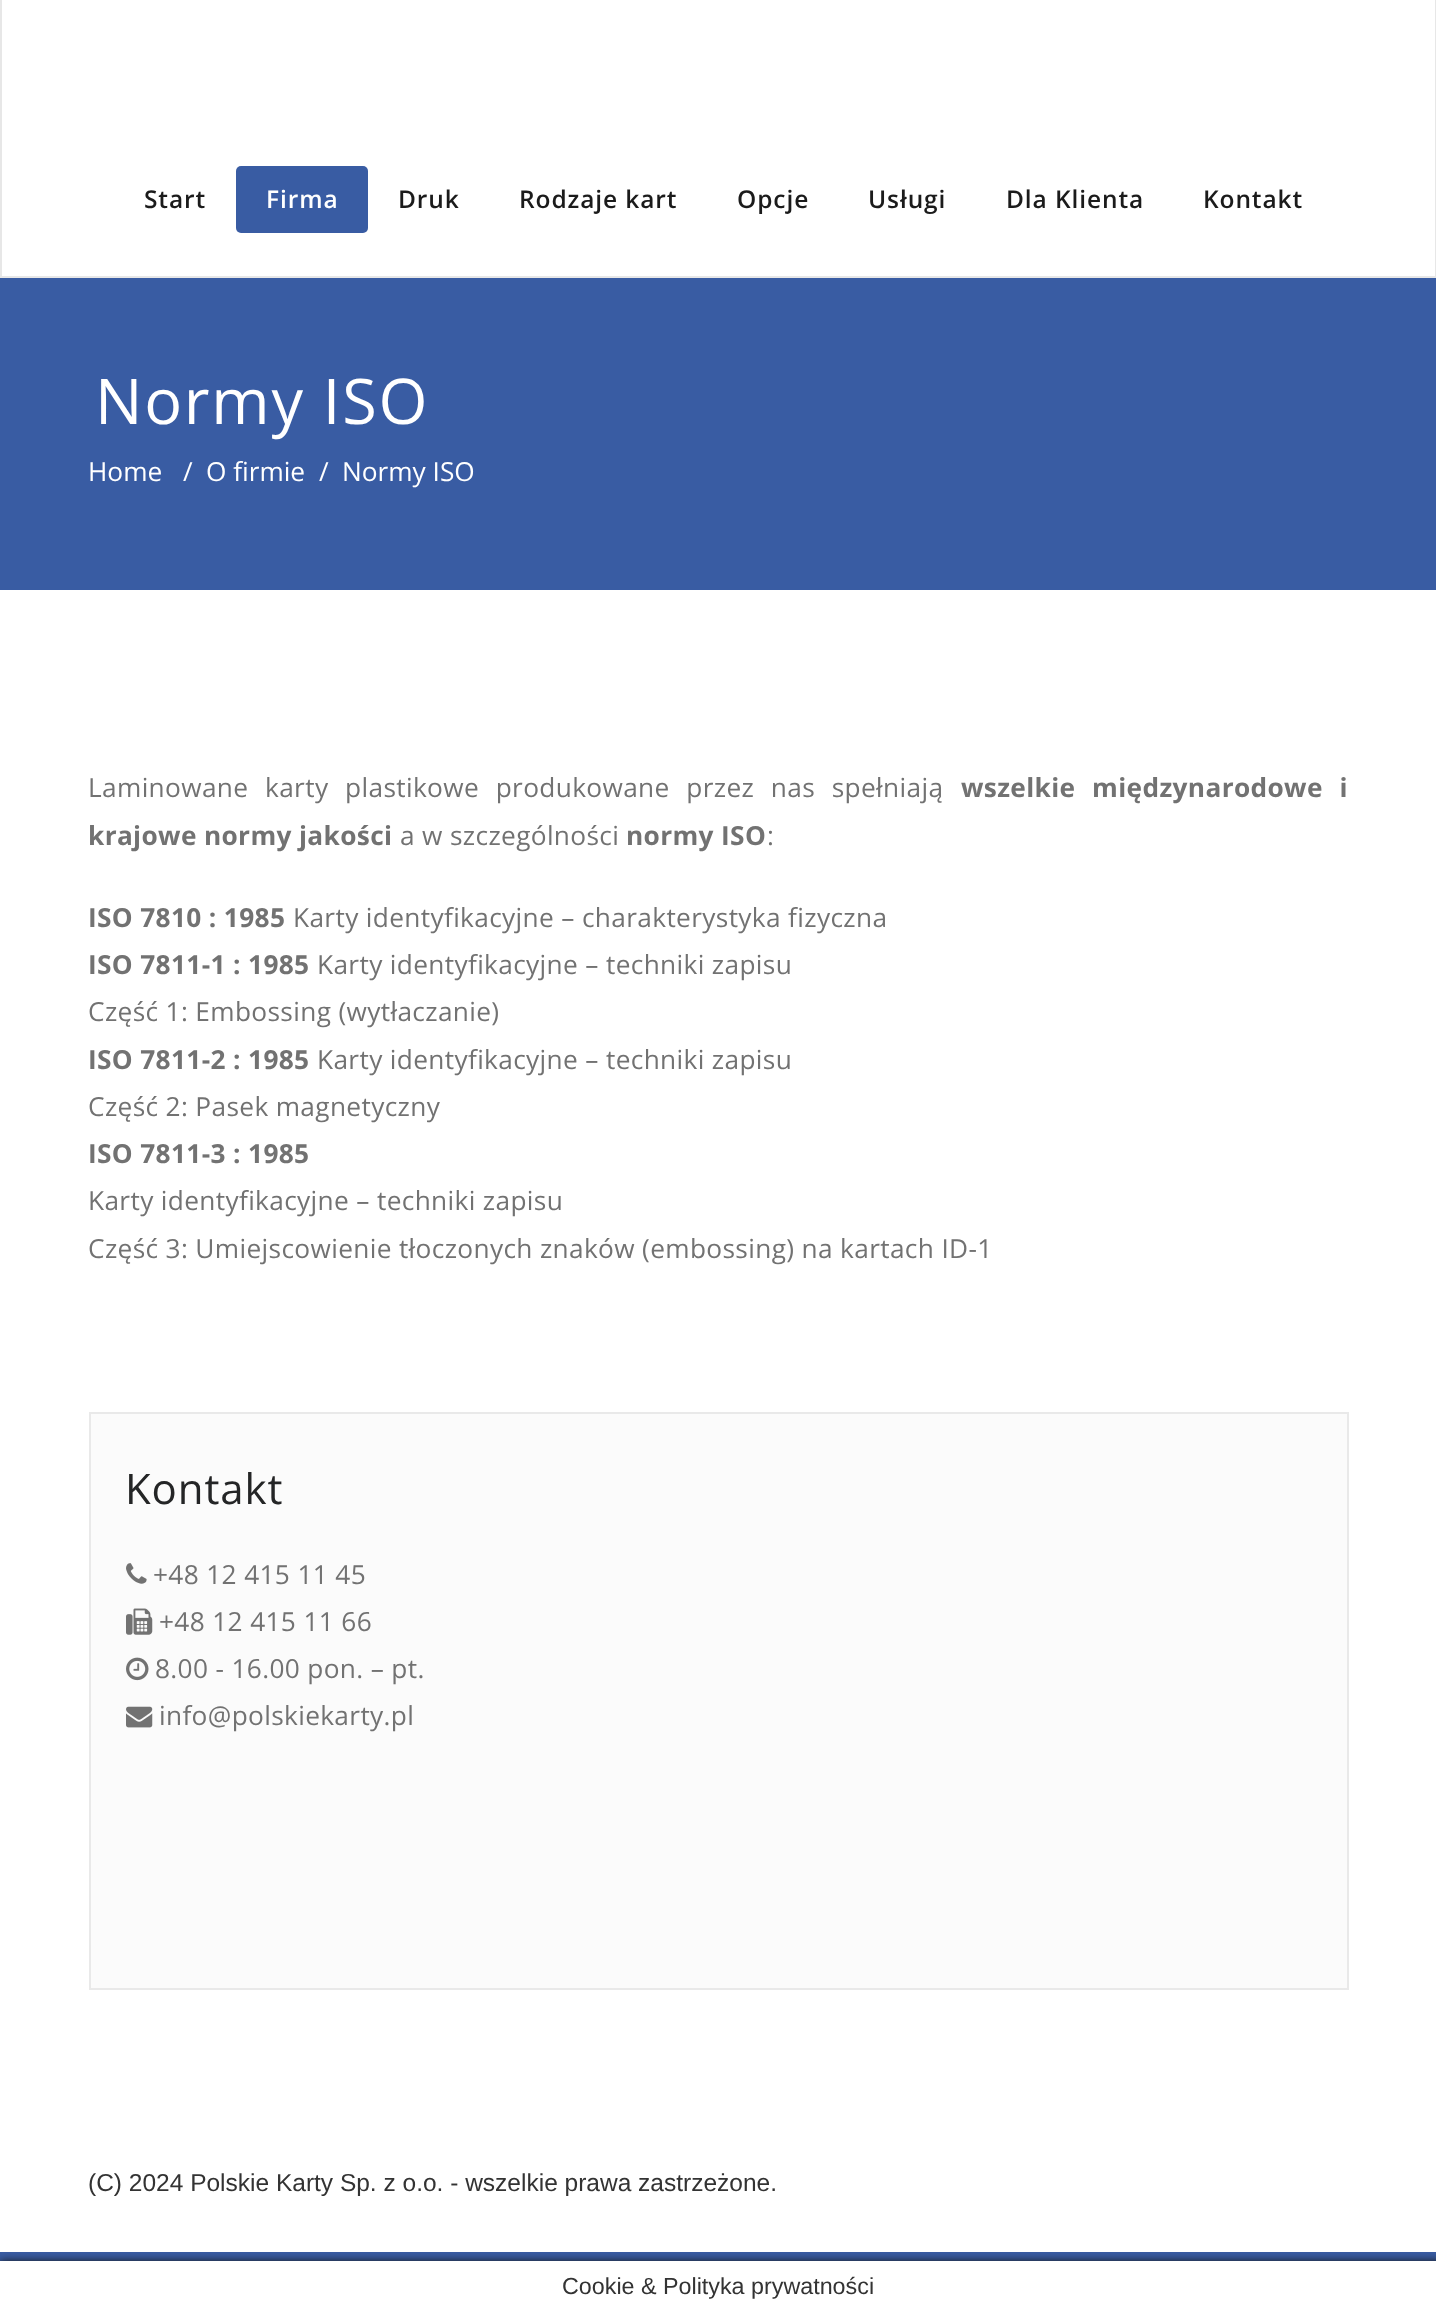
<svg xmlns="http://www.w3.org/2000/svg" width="1436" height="2310">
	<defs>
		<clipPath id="clip1"><rect x="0" y="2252" width="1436" height="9" /></clipPath>
	</defs>
	<rect width="100%" height="100%" fill="#FFFFFF" />
	<rect x="1" y="-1" width="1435" height="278" fill="none" stroke="#E7E7E7" stroke-width="2" />
	<text x="144" y="208" font-family="Open Sans" font-size="24.5" font-weight="600" letter-spacing="0.9" fill="#1B1B1B">Start</text>
	<rect x="236" y="166" width="132" height="67" rx="5" fill="#395CA3" />
	<text x="266" y="208" font-family="Open Sans" font-size="24.5" font-weight="600" letter-spacing="0.9" fill="#FFFFFF">Firma</text>
	<g font-family="Open Sans" font-size="24.5" font-weight="600" letter-spacing="0.9" fill="#1B1B1B">
		<text x="398" y="208">Druk</text>
		<text x="519" y="208">Rodzaje kart</text>
		<text x="737" y="208">Opcje</text>
		<text x="868" y="208">Usługi</text>
		<text x="1006" y="208">Dla Klienta</text>
		<text x="1203" y="208">Kontakt</text>
	</g>
	<rect x="0" y="278" width="1436" height="312" fill="#395CA3" />
	<text x="95" y="424" font-family="Open Sans" font-size="63" letter-spacing="1.75" fill="#FFFFFF">Normy ISO</text>
	<g font-family="Open Sans" font-size="26.25" fill="#FFFFFF">
		<text x="88" y="481">Home</text>
		<text x="183" y="481">/</text>
		<text x="206" y="481">O firmie</text>
		<text x="319" y="481">/</text>
		<text x="342" y="481">Normy ISO</text>
	</g>
	<text x="88" y="797" word-spacing="9.5" font-family="Open Sans" font-size="26.25" letter-spacing="0.35" fill="#727272">Laminowane karty plastikowe produkowane przez nas spełniają</text>
	<g font-family="Open Sans" font-size="26.25" font-weight="700" letter-spacing="0.35" fill="#727272">
		<text x="961" y="797" word-spacing="9.5">wszelkie międzynarodowe i</text>
		<text x="88" y="845">krajowe normy jakości</text>
	</g>
	<text x="400" y="845" font-family="Open Sans" font-size="26.25" letter-spacing="0.35" fill="#727272">a w szczególności</text>
	<text x="626" y="845" font-family="Open Sans" font-size="26.25" font-weight="700" letter-spacing="0.35" fill="#727272">normy ISO</text>
	<text x="767" y="845" font-family="Open Sans" font-size="26.25" letter-spacing="0.35" fill="#727272">:</text>
	<text x="88" y="927" font-family="Open Sans" font-size="26.25" font-weight="700" letter-spacing="0.35" fill="#727272">ISO 7810 : 1985</text>
	<text x="293" y="927" font-family="Open Sans" font-size="26.25" letter-spacing="0.35" fill="#727272">Karty identyfikacyjne – charakterystyka fizyczna</text>
	<text x="88" y="974" font-family="Open Sans" font-size="26.25" font-weight="700" letter-spacing="0.35" fill="#727272">ISO 7811-1 : 1985</text>
	<g font-family="Open Sans" font-size="26.25" letter-spacing="0.35" fill="#727272">
		<text x="317" y="974">Karty identyfikacyjne – techniki zapisu</text>
		<text x="88" y="1021">Część 1: Embossing (wytłaczanie)</text>
	</g>
	<text x="88" y="1069" font-family="Open Sans" font-size="26.25" font-weight="700" letter-spacing="0.35" fill="#727272">ISO 7811-2 : 1985</text>
	<g font-family="Open Sans" font-size="26.25" letter-spacing="0.35" fill="#727272">
		<text x="317" y="1069">Karty identyfikacyjne – techniki zapisu</text>
		<text x="88" y="1116">Część 2: Pasek magnetyczny</text>
	</g>
	<text x="88" y="1163" font-family="Open Sans" font-size="26.25" font-weight="700" letter-spacing="0.35" fill="#727272">ISO 7811-3 : 1985</text>
	<g font-family="Open Sans" font-size="26.25" letter-spacing="0.35" fill="#727272">
		<text x="88" y="1210">Karty identyfikacyjne – techniki zapisu</text>
		<text x="88" y="1258">Część 3: Umiejscowienie tłoczonych znaków (embossing) na kartach ID-1</text>
	</g>
	<rect x="90" y="1413" width="1258" height="576" fill="#FBFBFB" stroke="#E9E9E9" stroke-width="2" />
	<text x="125" y="1504" font-family="Open Sans" font-size="42" letter-spacing="0.9" fill="#242526">Kontakt</text>
	<image x="126" y="1563" width="21" height="21" href="assets/img1.png" />
	<text x="153" y="1584" font-family="Open Sans" font-size="26.25" letter-spacing="0.35" fill="#727272">+48 12 415 11 45</text>
	<image x="126" y="1608" width="27" height="27" href="assets/img2.png" />
	<text x="159" y="1631" font-family="Open Sans" font-size="26.25" letter-spacing="0.35" fill="#727272">+48 12 415 11 66</text>
	<image x="126" y="1657" width="23" height="24" href="assets/img3.png" />
	<text x="155" y="1678" font-family="Open Sans" font-size="26.25" letter-spacing="0.35" fill="#727272">8.00 - 16.00 pon. – pt.</text>
	<image x="126" y="1706" width="27" height="22" href="assets/img4.png" />
	<text x="159" y="1725" font-family="Open Sans" font-size="26.25" letter-spacing="0.35" fill="#727272">info@polskiekarty.pl</text>
	<rect x="0" y="2252" width="1436" height="9" fill="#395CA3" />
	<text x="88" y="2191" font-family="Liberation Sans" font-size="24.5" fill="#333333">(C) 2024 Polskie Karty Sp. z o.o. - wszelkie prawa zastrzeżone.</text>
	<g clip-path="url(#clip1)">
		<rect x="0" y="2261" width="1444" height="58" fill="#161616" filter="blur(4.5px)" />
	</g>
	<text x="562" y="2294" font-family="Liberation Sans" font-size="23.3" fill="#333333">Cookie &amp; Polityka prywatności</text>
</svg>
